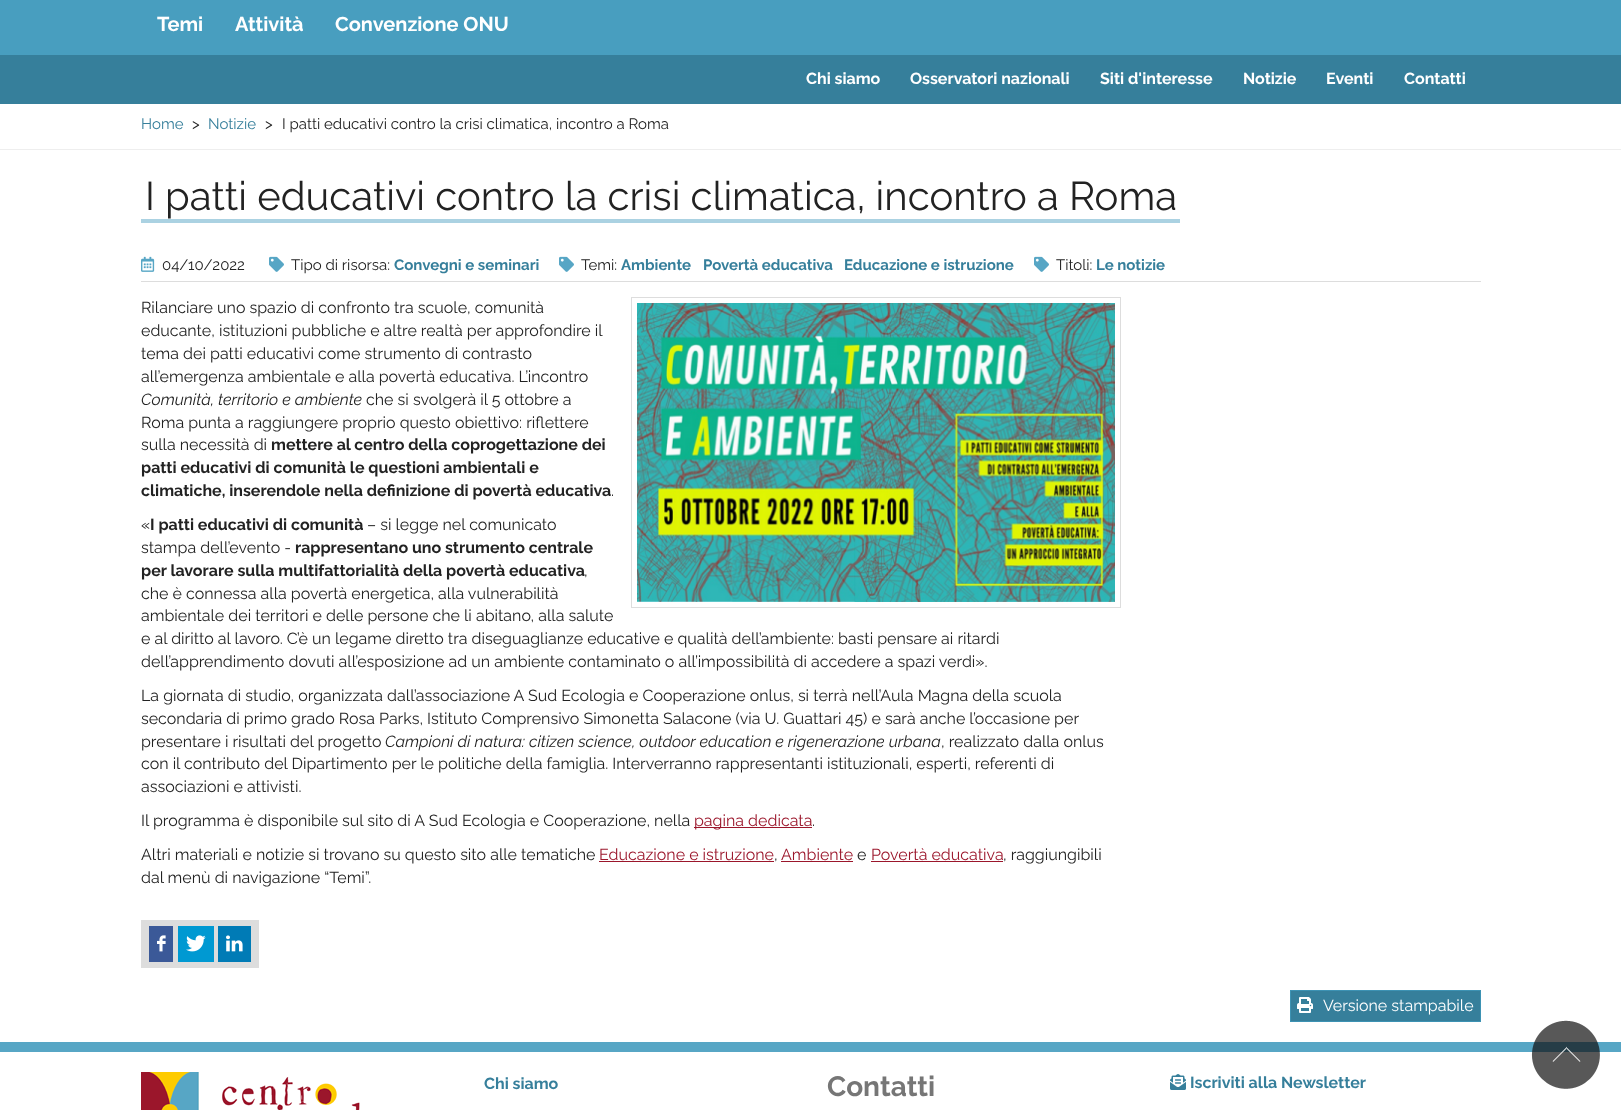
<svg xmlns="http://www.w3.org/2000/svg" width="1621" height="1110">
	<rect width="100%" height="100%" fill="#FFFFFF" />
	<rect x="0" y="0" width="1621" height="55" fill="#489EBF" />
	<g font-family="Raleway" font-size="20" font-weight="700" fill="#FFFFFF">
		<text x="157" y="31">Temi</text>
		<text x="235" y="31">Attività</text>
		<text x="335" y="31">Convenzione ONU</text>
	</g>
	<rect x="0" y="55" width="1621" height="49" fill="#367F9B" />
	<g font-family="Raleway" font-size="16" font-weight="700" fill="#FFFFFF">
		<text x="806" y="84">Chi siamo</text>
		<text x="910" y="84">Osservatori nazionali</text>
		<text x="1100" y="84">Siti d'interesse</text>
		<text x="1243" y="84">Notizie</text>
		<text x="1326" y="84">Eventi</text>
		<text x="1404" y="84">Contatti</text>
	</g>
	<rect x="0" y="149" width="1621" height="1" fill="#EEEEEE" />
	<text x="141" y="129" font-family="Raleway" font-size="15" fill="#367F9B">Home</text>
	<text x="192" y="129" font-family="Raleway" font-size="15" fill="#222222">&gt;</text>
	<text x="208" y="129" font-family="Raleway" font-size="15" fill="#367F9B">Notizie</text>
	<g font-family="Raleway" font-size="15" fill="#222222">
		<text x="265" y="129">&gt;</text>
		<text x="282" y="129">I patti educativi contro la crisi climatica, incontro a Roma</text>
	</g>
	<text x="145" y="210" font-family="Raleway" font-size="40" fill="#222222">I patti educativi contro la crisi climatica, incontro a Roma</text>
	<rect x="141" y="219" width="1039" height="4" fill="#ABD2E2" />
	<rect x="141" y="281" width="1340" height="1" fill="#DDDDDD" />
	<image x="141" y="256" width="14" height="16" href="assets/img1.png" />
	<text x="162" y="270" font-family="Raleway" font-size="15" fill="#222222">04/10/2022</text>
	<image x="269" y="256" width="15" height="16" href="assets/img2.png" />
	<text x="291" y="270" font-family="Raleway" font-size="15" fill="#222222">Tipo di risorsa:</text>
	<text x="394" y="270" font-family="Raleway" font-size="15" font-weight="700" fill="#367F9B">Convegni e seminari</text>
	<image x="559" y="256" width="15" height="16" href="assets/img2.png" />
	<text x="581" y="270" font-family="Raleway" font-size="15" fill="#222222">Temi:</text>
	<g font-family="Raleway" font-size="15" font-weight="700" fill="#367F9B">
		<text x="621" y="270">Ambiente</text>
		<text x="703" y="270">Povertà educativa</text>
		<text x="844" y="270">Educazione e istruzione</text>
	</g>
	<image x="1034" y="256" width="15" height="16" href="assets/img2.png" />
	<text x="1056" y="270" font-family="Raleway" font-size="15" fill="#222222">Titoli:</text>
	<text x="1096" y="270" font-family="Raleway" font-size="15" font-weight="700" fill="#367F9B">Le notizie</text>
	<rect x="631.5" y="297.5" width="489" height="310" fill="none" stroke="#DDDDDD" />
	<image x="637" y="303" width="478" height="299" href="assets/img3.png" />
	<g font-family="Raleway" font-size="16" fill="#222222">
		<text x="141" y="313">Rilanciare uno spazio di confronto tra scuole, comunità</text>
		<text x="141" y="336">educante, istituzioni pubbliche e altre realtà per approfondire il</text>
		<text x="141" y="359">tema dei patti educativi come strumento di contrasto</text>
		<text x="141" y="382">all’emergenza ambientale e alla povertà educativa. L’incontro</text>
	</g>
	<text x="141" y="405" font-family="Raleway" font-size="16" font-style="italic" fill="#222222">Comunità, territorio e ambiente</text>
	<g font-family="Raleway" font-size="16" fill="#222222">
		<text x="366" y="405">che si svolgerà il 5 ottobre a</text>
		<text x="141" y="428">Roma punta a raggiungere proprio questo obiettivo: riflettere</text>
		<text x="141" y="450">sulla necessità di</text>
	</g>
	<g font-family="Raleway" font-size="16" font-weight="700" fill="#222222">
		<text x="271" y="450">mettere al centro della coprogettazione dei</text>
		<text x="141" y="473">patti educativi di comunità le questioni ambientali e</text>
		<text x="141" y="496">climatiche, inserendole nella definizione di povertà educativa</text>
	</g>
	<g font-family="Raleway" font-size="16" fill="#222222">
		<text x="611" y="496">.</text>
		<text x="141" y="530">«</text>
	</g>
	<text x="150" y="530" font-family="Raleway" font-size="16" font-weight="700" fill="#222222">I patti educativi di comunità</text>
	<g font-family="Raleway" font-size="16" fill="#222222">
		<text x="367" y="530">– si legge nel comunicato</text>
		<text x="141" y="553">stampa dell’evento -</text>
	</g>
	<g font-family="Raleway" font-size="16" font-weight="700" fill="#222222">
		<text x="295" y="553">rappresentano uno strumento centrale</text>
		<text x="141" y="576">per lavorare sulla multifattorialità della povertà educativa</text>
	</g>
	<g font-family="Raleway" font-size="16" fill="#222222">
		<text x="584" y="576">,</text>
		<text x="141" y="599">che è connessa alla povertà energetica, alla vulnerabilità</text>
		<text x="141" y="621">ambientale dei territori e delle persone che li abitano, alla salute</text>
		<text x="141" y="644">e al diritto al lavoro. C’è un legame diretto tra diseguaglianze educative e qualità dell’ambiente: basti pensare ai ritardi</text>
		<text x="141" y="667">dell’apprendimento dovuti all’esposizione ad un ambiente contaminato o all’impossibilità di accedere a spazi verdi».</text>
		<text x="141" y="701">La giornata di studio, organizzata dall’associazione A Sud Ecologia e Cooperazione onlus, si terrà nell’Aula Magna della scuola</text>
		<text x="141" y="724">secondaria di primo grado Rosa Parks, Istituto Comprensivo Simonetta Salacone (via U. Guattari 45) e sarà anche l’occasione per</text>
		<text x="141" y="747">presentare i risultati del progetto</text>
	</g>
	<text x="385" y="747" font-family="Raleway" font-size="16" font-style="italic" fill="#222222">Campioni di natura: citizen science, outdoor education e rigenerazione urbana</text>
	<g font-family="Raleway" font-size="16" fill="#222222">
		<text x="941" y="747">, realizzato dalla onlus</text>
		<text x="141" y="769">con il contributo del Dipartimento per le politiche della famiglia. Interverranno rappresentanti istituzionali, esperti, referenti di</text>
		<text x="141" y="792">associazioni e attivisti.</text>
		<text x="141" y="826">Il programma è disponibile sul sito di A Sud Ecologia e Cooperazione, nella</text>
	</g>
	<rect x="694" y="827" width="118" height="1" fill="#9B162B" />
	<text x="694" y="826" font-family="Raleway" font-size="16" fill="#9B162B">pagina dedicata</text>
	<g font-family="Raleway" font-size="16" fill="#222222">
		<text x="812" y="826">.</text>
		<text x="141" y="860">Altri materiali e notizie si trovano su questo sito alle tematiche</text>
	</g>
	<text x="599" y="860" font-family="Raleway" font-size="16" fill="#9B162B">Educazione e istruzione</text>
	<rect x="599" y="861" width="175" height="1" fill="#9B162B" />
	<text x="774" y="860" font-family="Raleway" font-size="16" fill="#222222">,</text>
	<text x="781" y="860" font-family="Raleway" font-size="16" fill="#9B162B">Ambiente</text>
	<rect x="781" y="861" width="72" height="1" fill="#9B162B" />
	<text x="857" y="860" font-family="Raleway" font-size="16" fill="#222222">e</text>
	<text x="871" y="860" font-family="Raleway" font-size="16" fill="#9B162B">Povertà educativa</text>
	<rect x="871" y="861" width="132" height="1" fill="#9B162B" />
	<g font-family="Raleway" font-size="16" fill="#222222">
		<text x="1003" y="860">, raggiungibili</text>
		<text x="141" y="883">dal menù di navigazione “Temi”.</text>
	</g>
	<rect x="141" y="920" width="118" height="48" fill="#DDDDDD" />
	<rect x="149" y="926" width="24" height="36" fill="#3B5998" />
	<image x="157" y="935" width="9" height="17" href="assets/img4.png" />
	<rect x="178" y="926" width="36" height="36" fill="#0099D2" />
	<image x="186" y="935" width="20" height="17" href="assets/img5.png" />
	<rect x="218" y="926" width="33" height="36" fill="#007BB6" />
	<image x="226" y="935" width="17" height="17" href="assets/img6.png" />
	<rect x="1290.5" y="990.5" width="190" height="31" fill="#367F9B" stroke="#3D92B3" />
	<image x="1297" y="997" width="16" height="16" href="assets/img7.png" />
	<text x="1323" y="1011" font-family="Raleway" font-size="16" fill="#FFFFFF">Versione stampabile</text>
	<rect x="0" y="1042" width="1621" height="10" fill="#57A6C5" />
	<image x="141" y="1072" width="219" height="38" href="assets/img8.png" />
	<text x="484" y="1089" font-family="Raleway" font-size="16" font-weight="700" fill="#367F9B">Chi siamo</text>
	<text x="827" y="1096" font-family="Raleway" font-size="28" font-weight="700" fill="#767676">Contatti</text>
	<image x="1170" y="1074" width="16" height="16" href="assets/img9.png" />
	<text x="1190" y="1088" font-family="Raleway" font-size="16" font-weight="700" fill="#367F9B">Iscriviti alla Newsletter</text>
	<image x="1531" y="1020" width="69" height="69" href="assets/img10.png" />
</svg>
